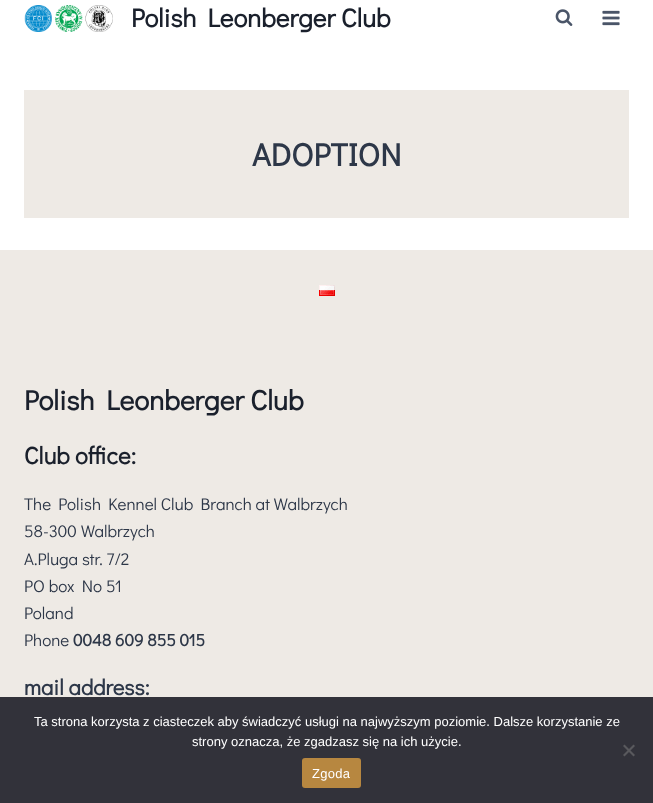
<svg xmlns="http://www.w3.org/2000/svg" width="653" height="803">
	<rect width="100%" height="100%" fill="#FFFFFF" />
	<image x="24" y="5" width="89" height="27" href="assets/img1.png" />
	<text x="131" y="27" font-family="Didact Gothic" font-size="26" font-weight="700" fill="#1A202C">Polish Leonberger Club</text>
	<image x="555" y="9" width="18" height="17" href="assets/img2.png" />
	<image x="602" y="10" width="18" height="16" href="assets/img3.png" />
	<rect x="24" y="90" width="605" height="128" fill="#EEEAE5" />
	<text x="252" y="166" font-family="Didact Gothic" font-size="32" font-weight="700" fill="#2D3748">ADOPTION</text>
	<rect x="0" y="250" width="653" height="447" fill="#EEEAE5" />
	<image x="319" y="285" width="16" height="11" href="assets/img4.png" />
	<text x="24" y="410" font-family="Didact Gothic" font-size="28" font-weight="700" fill="#1A202C">Polish Leonberger Club</text>
	<text x="24" y="464" font-family="Didact Gothic" font-size="24" font-weight="700" fill="#1A202C">Club office:</text>
	<g font-family="Didact Gothic" font-size="17" fill="#2D3748">
		<text x="24" y="510">The Polish Kennel Club Branch at Walbrzych</text>
		<text x="24" y="537">58-300 Walbrzych</text>
		<text x="24" y="565">A.Pluga str. 7/2</text>
		<text x="24" y="592">PO box No 51</text>
		<text x="24" y="619">Poland</text>
		<text x="24" y="646">Phone</text>
	</g>
	<text x="73" y="646" font-family="Didact Gothic" font-size="17" font-weight="700" fill="#2D3748">0048 609 855 015</text>
	<text x="24" y="695" font-family="Didact Gothic" font-size="22" font-weight="700" fill="#2D3748">mail address:</text>
	<rect x="0" y="697" width="653" height="106" fill="#32323A" />
	<g font-family="Liberation Sans" font-size="13" fill="#FFFFFF">
		<text x="34" y="726">Ta strona korzysta z ciasteczek aby świadczyć usługi na najwyższym poziomie. Dalsze korzystanie ze</text>
		<text x="192" y="746">strony oznacza, że zgadzasz się na ich użycie.</text>
	</g>
	<path d="M633.5 744.5L635 746L624.5 756.5L623 755Z" fill="#59595D" />
	<path d="M623 746L624.5 744.5L635 755L633.5 756.5Z" fill="#59595D" />
	<rect x="302" y="758" width="59" height="30" rx="3" fill="#B78740" />
	<text x="312" y="778" font-family="Liberation Sans" font-size="13" letter-spacing="0.25" fill="#FFFFFF">Zgoda</text>
</svg>
